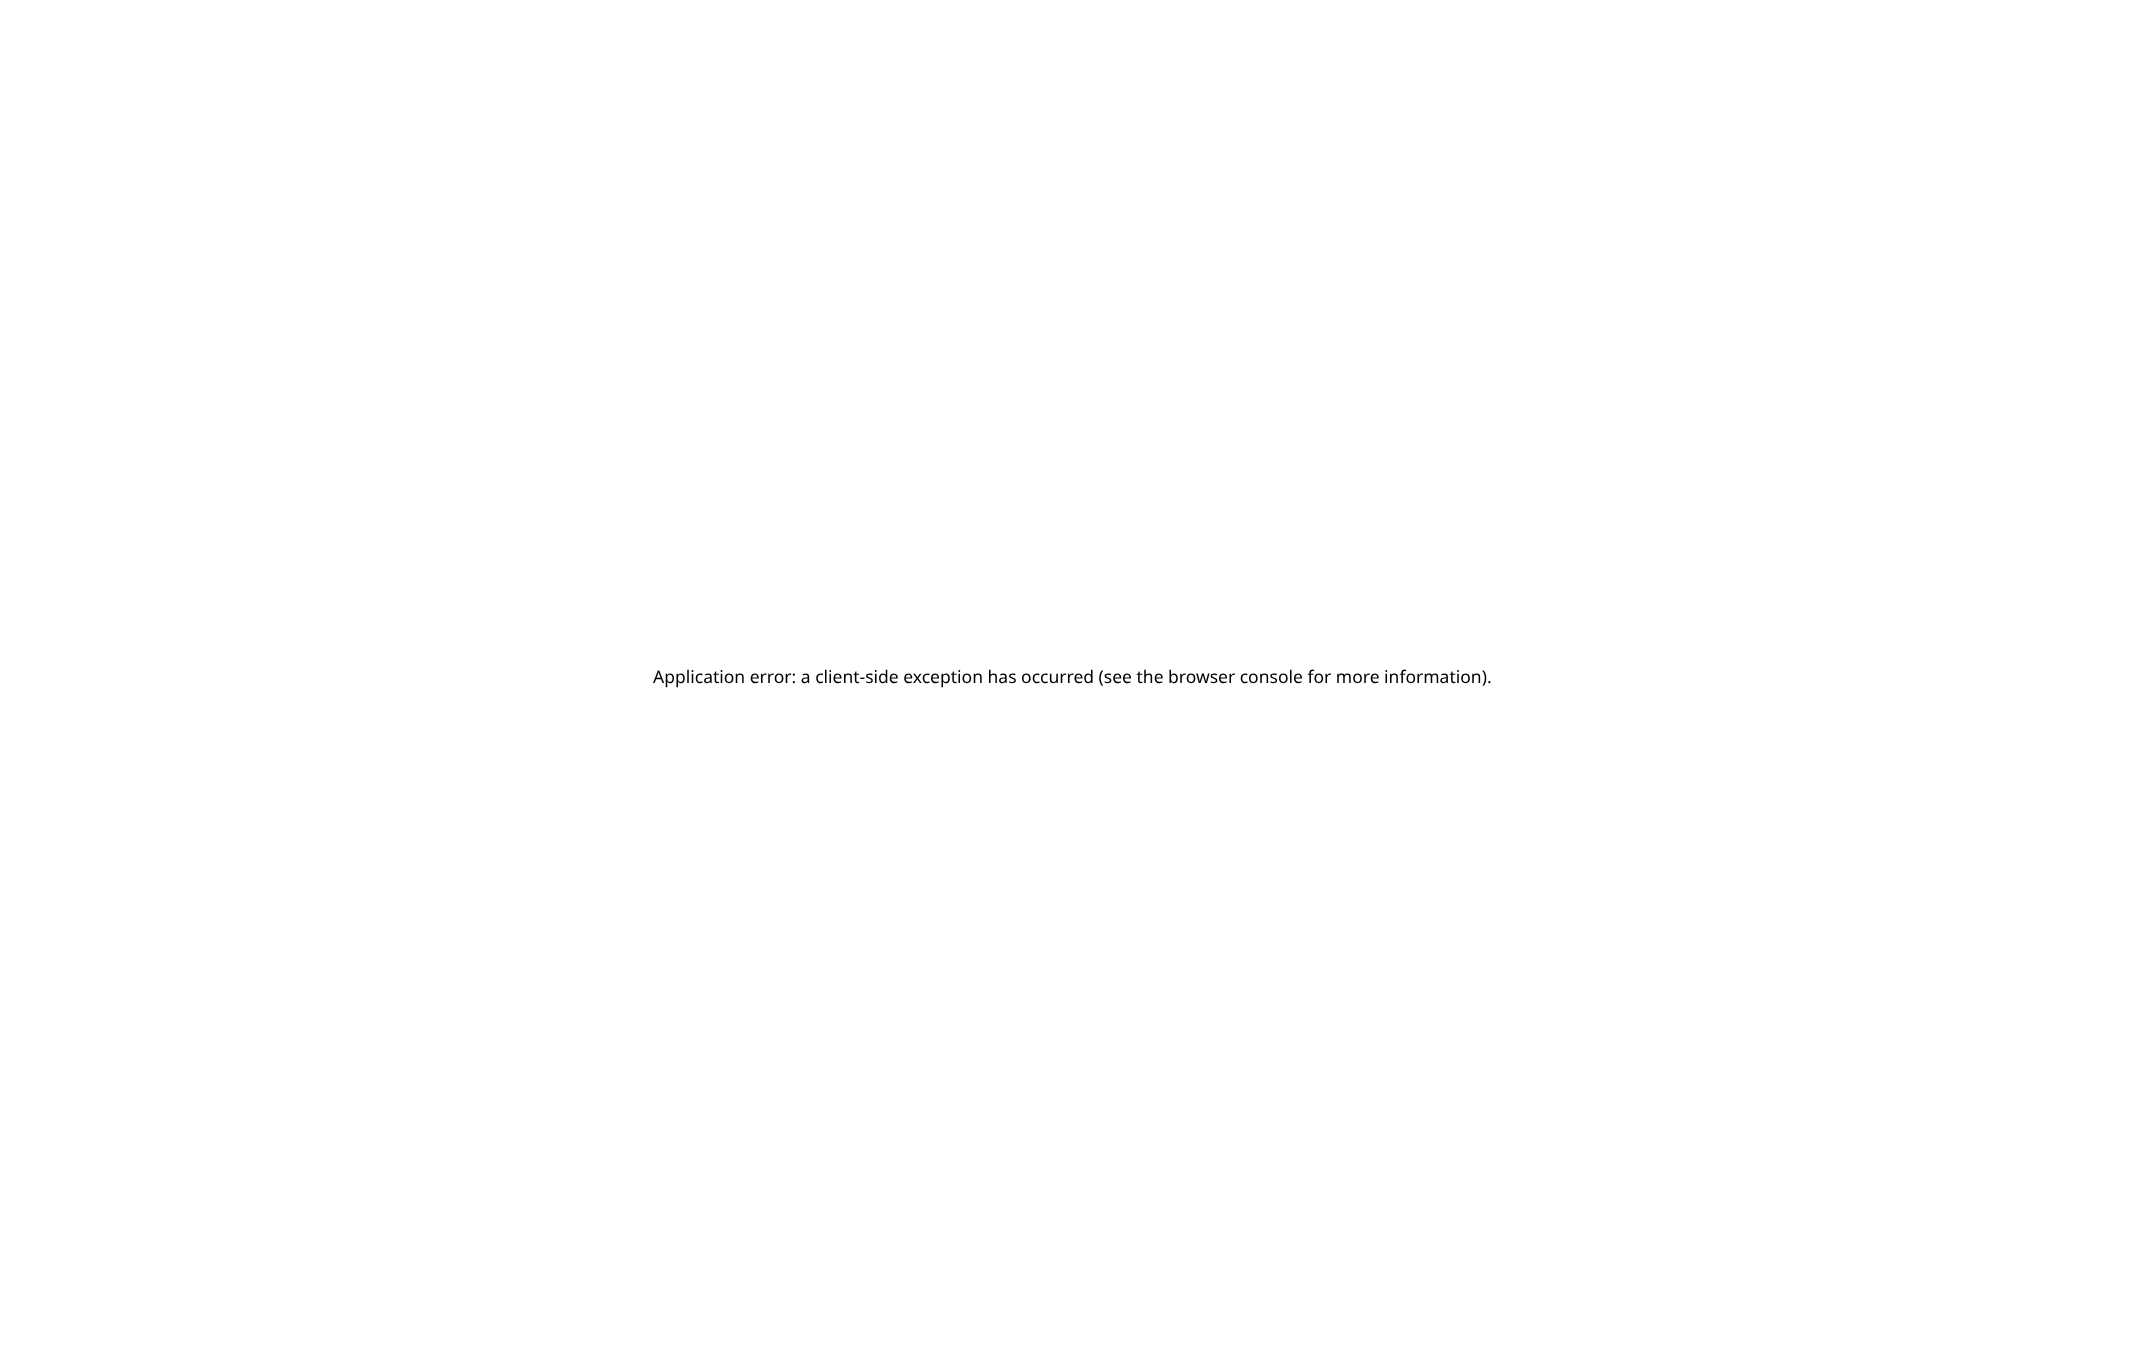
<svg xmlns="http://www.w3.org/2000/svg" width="2145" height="1353">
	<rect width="100%" height="100%" fill="#FFFFFF" />
	<text x="653" y="683" font-family="Noto Sans" font-size="17.5" fill="#000000">Application error: a client-side exception has occurred (see the browser console for more information).</text>
</svg>
